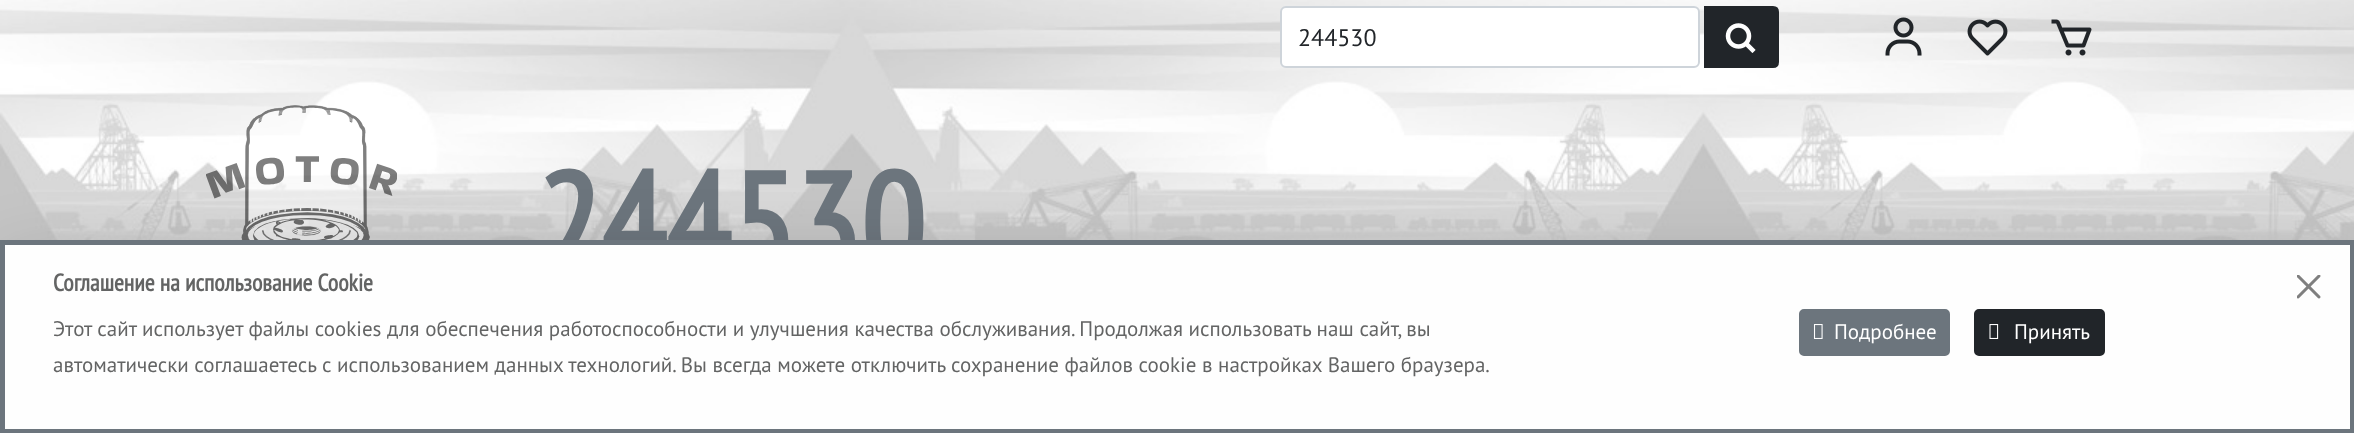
<svg xmlns="http://www.w3.org/2000/svg" width="2354" height="433">
	<rect width="100%" height="100%" fill="#FFFFFF" />
	<image x="0" y="0" width="2354" height="240" href="assets/img1.png" />
	<rect x="1281" y="7" width="418" height="60" rx="5" fill="#FFFFFF" stroke="#CED4DA" stroke-width="2" />
	<text x="1298" y="46" font-family="PT Sans" font-size="24" fill="#212529">244530</text>
	<path d="M1705 7H1773C1776 7 1778 9 1778 12V62C1778 65 1776 67 1773 67H1705Z" fill="#212529" stroke="#212529" stroke-width="2" />
	<image x="1725" y="23" width="31" height="30" href="assets/img2.png" />
	<image x="1885" y="17" width="37" height="39" href="assets/img3.png" />
	<image x="1967" y="19" width="41" height="37" href="assets/img4.png" />
	<image x="2051" y="19" width="41" height="37" href="assets/img5.png" />
	<image x="206" y="105" width="191" height="135" href="assets/img6.png" />
	<text x="536" y="275" font-family="PT Sans Narrow" font-size="144" font-weight="700" fill="#6C757D">244530</text>
	<rect x="0" y="264" width="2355" height="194" fill="#000000" fill-opacity="0.18" filter="blur(36px)" />
	<rect x="2.5" y="242.5" width="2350" height="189" fill="#FEFEFE" stroke="#6C757D" stroke-width="5" />
	<text x="53" y="291" font-family="PT Sans Narrow" font-size="24" font-weight="700" fill="#636464">Соглашение на использование Cookie</text>
	<g font-family="PT Sans" font-size="21" fill="#636464">
		<text x="53" y="336">Этот сайт использует файлы cookies для обеспечения работоспособности и улучшения качества обслуживания. Продолжая использовать наш сайт, вы</text>
		<text x="53" y="372">автоматически соглашаетесь с использованием данных технологий. Вы всегда можете отключить сохранение файлов cookie в настройках Вашего браузера.</text>
	</g>
	<rect x="1800" y="310" width="149" height="45" rx="4" fill="#6C757D" stroke="#6C757D" stroke-width="2" />
	<image x="1813" y="324" width="10" height="15" href="assets/img7.png" />
	<text x="1834" y="339" font-family="PT Sans" font-size="21" fill="#FFFFFF">Подробнее</text>
	<rect x="1975" y="310" width="129" height="45" rx="4" fill="#212529" stroke="#212529" stroke-width="2" />
	<image x="1989" y="324" width="10" height="15" href="assets/img8.png" />
	<text x="2014" y="339" font-family="PT Sans" font-size="21" fill="#FFFFFF">Принять</text>
	<image x="2297" y="275" width="24" height="24" href="assets/img9.png" />
</svg>
